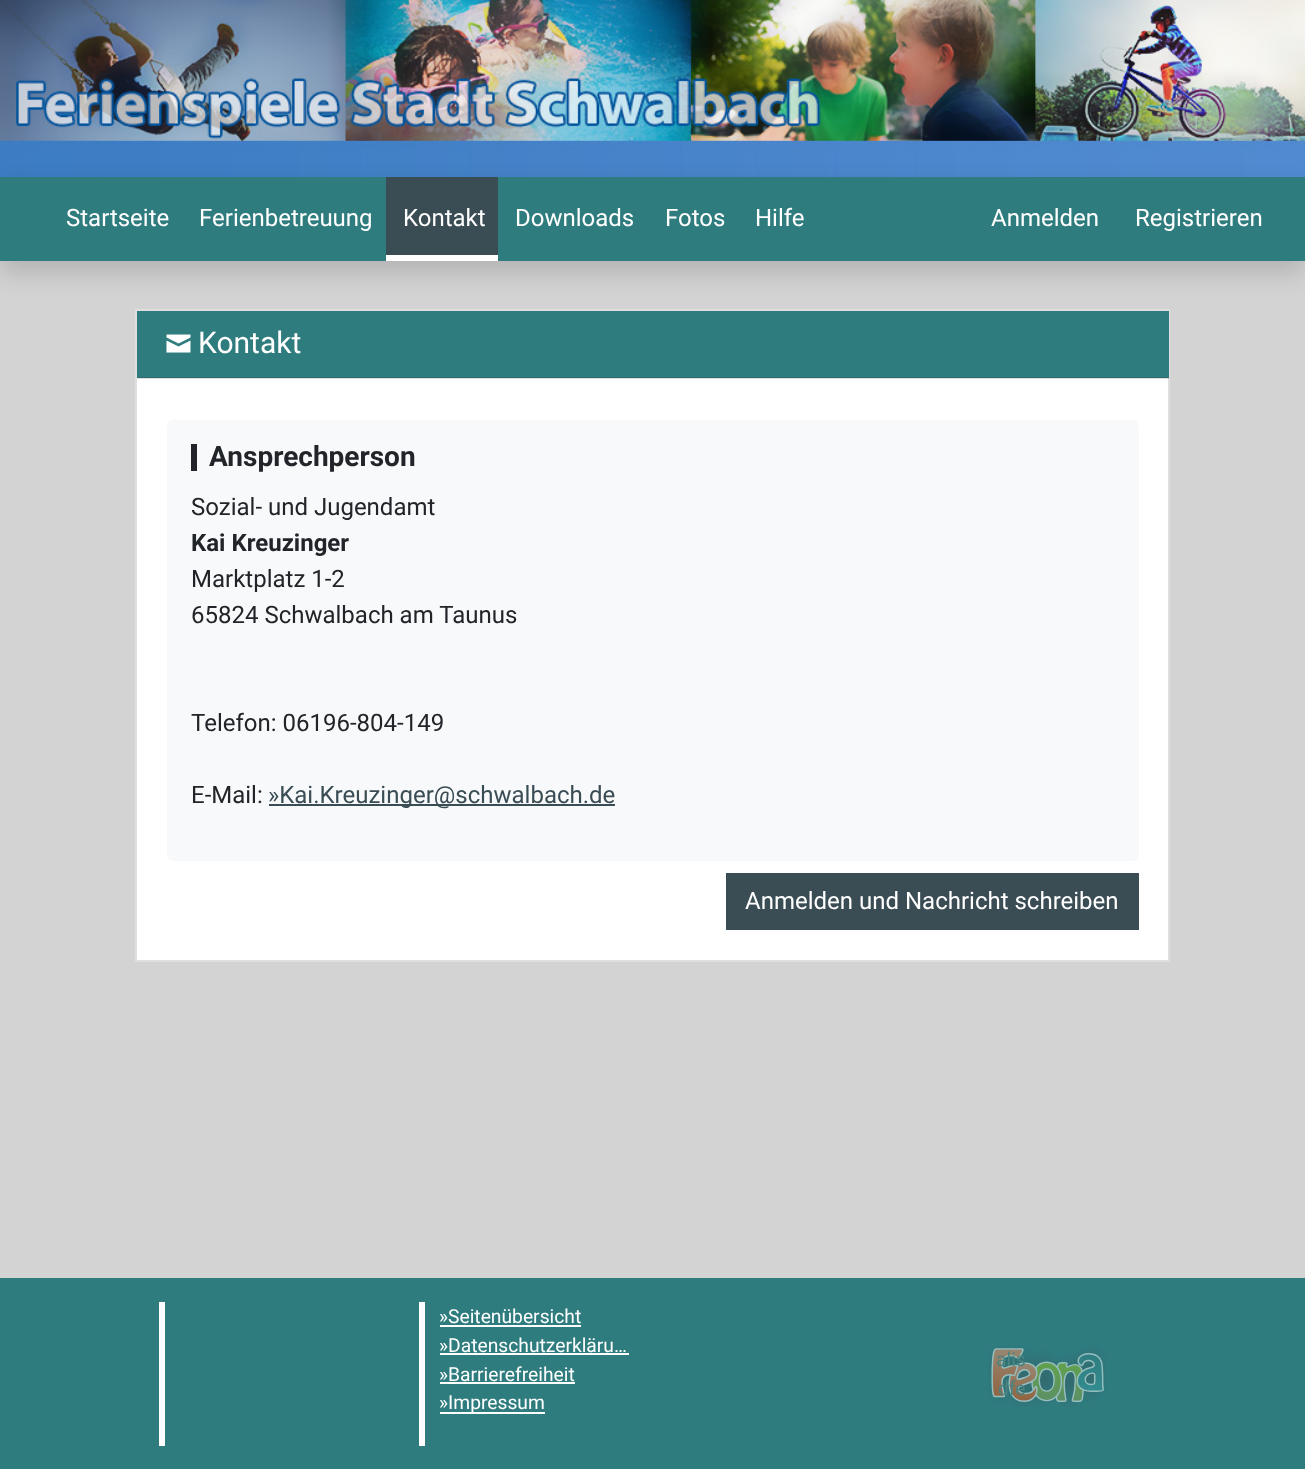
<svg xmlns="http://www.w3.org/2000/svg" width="1305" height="1469">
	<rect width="100%" height="100%" fill="#D3D3D3" />
	<image x="0" y="0" width="1305" height="177" href="assets/img1.png" />
	<rect x="137" y="378" width="1031" height="582" fill="#FFFFFF" />
	<rect x="136" y="310" width="1033" height="651" fill="none" stroke="#DFDFDF" stroke-width="2" />
	<rect x="0" y="189" width="1305" height="84" fill="#000000" fill-opacity="0.15" filter="blur(12px)" />
	<rect x="0" y="177" width="1305" height="84" fill="#2F7C7F" />
	<g font-family="Roboto" font-size="24" fill="#FFFFFF">
		<text x="66" y="226">Startseite</text>
		<text x="199" y="226">Ferienbetreuung</text>
	</g>
	<rect x="386" y="177" width="112" height="78" fill="#3A4C54" />
	<rect x="386" y="255" width="112" height="6" fill="#FFFFFF" />
	<g font-family="Roboto" font-size="24" fill="#FFFFFF">
		<text x="403" y="226">Kontakt</text>
		<text x="515" y="226">Downloads</text>
		<text x="665" y="226">Fotos</text>
		<text x="755" y="226">Hilfe</text>
		<text x="991" y="226">Anmelden</text>
		<text x="1135" y="226">Registrieren</text>
	</g>
	<rect x="137" y="311" width="1032" height="67" fill="#2F7C7F" />
	<rect x="137" y="377" width="1032" height="2" fill="#000000" fill-opacity="0.12" />
	<image x="166" y="334" width="25" height="19" href="assets/img2.png" />
	<text x="198" y="353" font-family="Roboto" font-size="30" fill="#FFFFFF">Kontakt</text>
	<rect x="167" y="420" width="972" height="441" rx="6" fill="#F8F9FA" />
	<rect x="191" y="444" width="6" height="27" fill="#212529" />
	<text x="209" y="466" font-family="Roboto" font-size="28" font-weight="700" fill="#212529">Ansprechperson</text>
	<text x="191" y="515" font-family="Roboto" font-size="24" fill="#212529">Sozial- und Jugendamt</text>
	<text x="191" y="551" font-family="Roboto" font-size="24" font-weight="700" fill="#212529">Kai Kreuzinger</text>
	<g font-family="Roboto" font-size="24" fill="#212529">
		<text x="191" y="587">Marktplatz 1-2</text>
		<text x="191" y="623">65824 Schwalbach am Taunus</text>
		<text x="191" y="731">Telefon: 06196-804-149</text>
		<text x="191" y="803">E-Mail:</text>
	</g>
	<rect x="269" y="804" width="346" height="2" fill="#3A4C54" />
	<text x="268" y="803" font-family="Roboto" font-size="24" fill="#3A4C54">»Kai.Kreuzinger@schwalbach.de</text>
	<rect x="726" y="873" width="413" height="57" fill="#3A4C54" />
	<text x="745" y="909" font-family="Roboto" font-size="24" fill="#FFFFFF">Anmelden und Nachricht schreiben</text>
	<rect x="0" y="1278" width="1305" height="191" fill="#2F7C7F" />
	<rect x="159" y="1302" width="6" height="144" fill="#FFFFFF" />
	<rect x="419" y="1302" width="6" height="144" fill="#FFFFFF" />
	<text x="439" y="1323" font-family="Roboto" font-size="19.25" fill="#FFFFFF">»Seitenübersicht</text>
	<rect x="440" y="1325" width="141" height="2" fill="#FFFFFF" />
	<text x="439" y="1352" font-family="Roboto" font-size="19.25" fill="#FFFFFF">»Datenschutzerkläru…</text>
	<rect x="440" y="1353" width="189" height="2" fill="#FFFFFF" />
	<text x="439" y="1381" font-family="Roboto" font-size="19.25" fill="#FFFFFF">»Barrierefreiheit</text>
	<rect x="440" y="1382" width="135" height="2" fill="#FFFFFF" />
	<rect x="440" y="1412" width="105" height="2" fill="#FFFFFF" />
	<text x="439" y="1409" font-family="Roboto" font-size="19.25" fill="#FFFFFF">»Impressum</text>
	<image x="988" y="1346" width="118" height="61" href="assets/img3.png" />
	<g font-family="Roboto" font-size="19.25" fill="#4B8481">
		<text x="996" y="1366">alis</text>
		<text x="998" y="1395">dfe</text>
	</g>
</svg>
